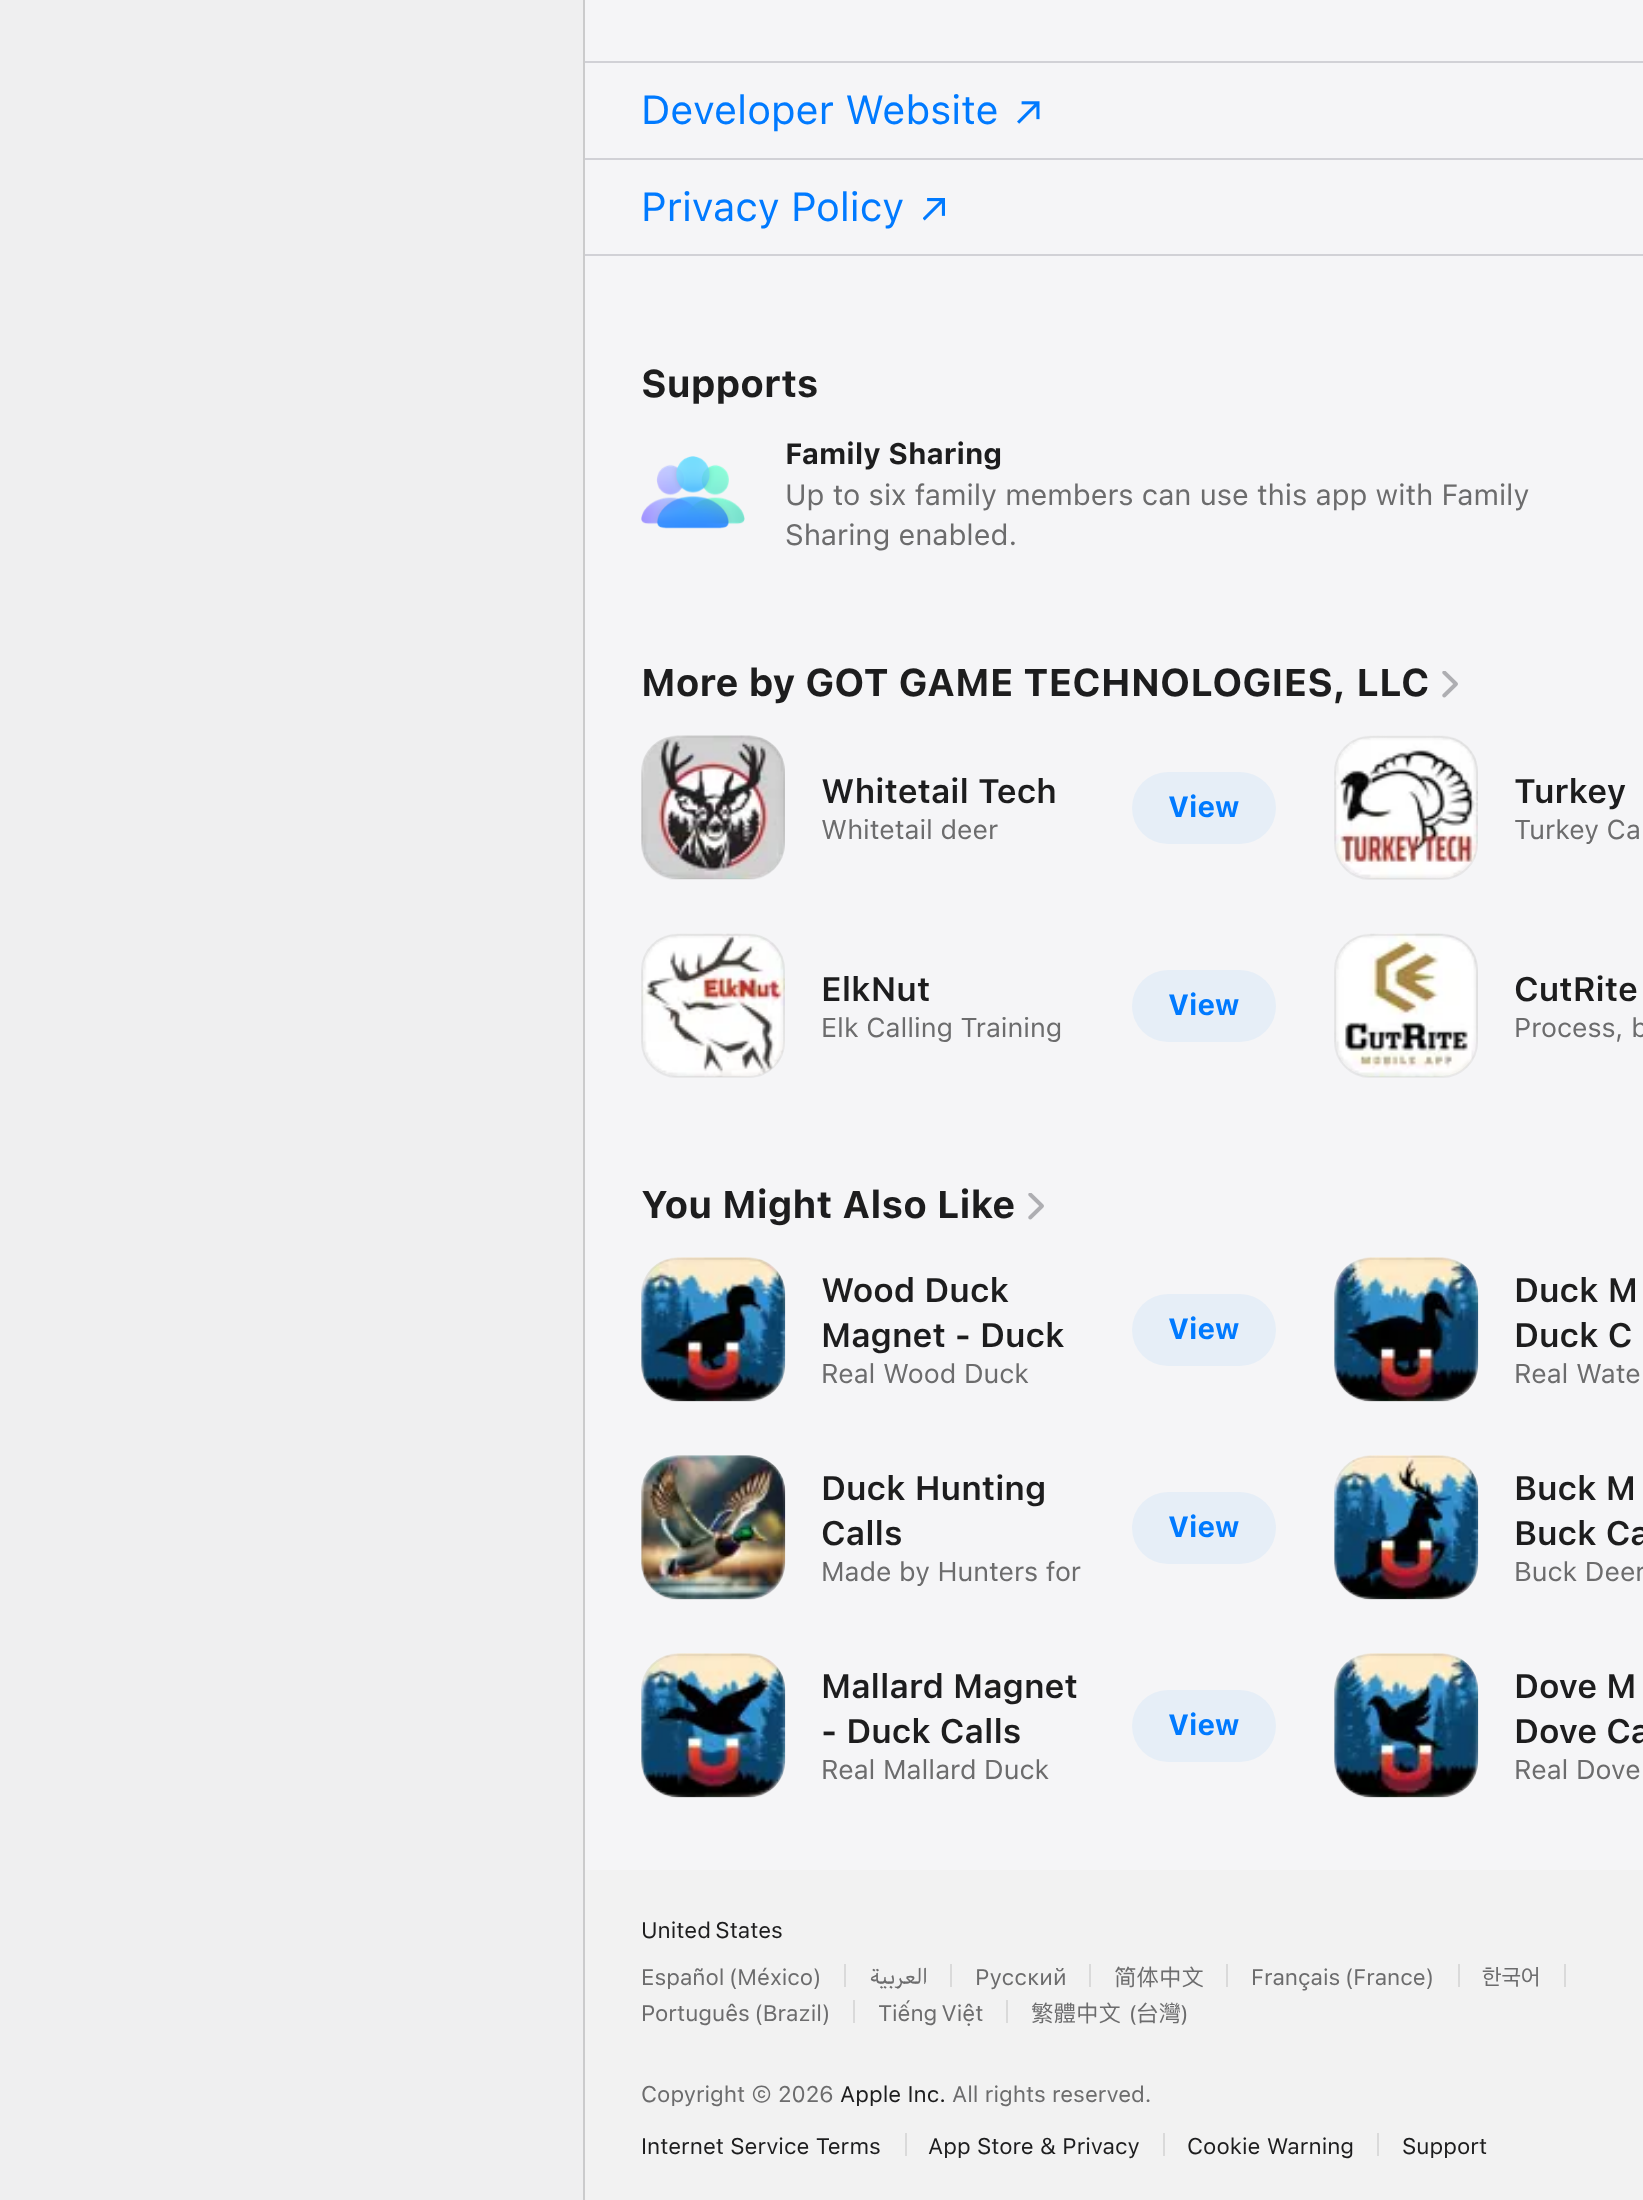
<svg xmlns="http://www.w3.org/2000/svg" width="1643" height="2200">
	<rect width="100%" height="100%" fill="#F5F5F7" />
	<rect x="0" y="0" width="583" height="2200" fill="#EFEFF0" />
	<rect x="583" y="0" width="2" height="2200" fill="#CBCBCC" />
	<rect x="585" y="61" width="1058" height="2" fill="#D1D1D6" />
	<rect x="585" y="158" width="1058" height="2" fill="#D1D1D6" />
	<text x="641" y="124" font-family="SF" font-size="40.5" fill="#007AFF">Developer Website</text>
	<image x="1017" y="101" width="23" height="23" href="assets/img1.png" />
	<rect x="585" y="254" width="1058" height="2" fill="#D1D1D6" />
	<text x="641" y="221" font-family="SF" font-size="40.5" fill="#007AFF">Privacy Policy</text>
	<image x="923" y="198" width="22" height="23" href="assets/img2.png" />
	<text x="641" y="397" font-family="SF" font-size="38.25" font-weight="700" fill="#1D1D1E">Supports</text>
	<image x="641" y="456" width="104" height="73" href="assets/img3.png" />
	<text x="785" y="464" font-family="SF" font-size="29.25" font-weight="700" fill="#1D1D1E">Family Sharing</text>
	<g font-family="'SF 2'" font-size="29.25" fill="#6C6C6D">
		<text x="785" y="505">Up to six family members can use this app with Family</text>
		<text x="785" y="545">Sharing enabled.</text>
	</g>
	<text x="641" y="696" font-family="SF" font-size="38.25" font-weight="700" fill="#1D1D1E">More by GOT GAME TECHNOLOGIES, LLC</text>
	<image x="1442" y="671" width="16" height="27" href="assets/img4.png" />
	<image x="641" y="735" width="144" height="144" href="assets/img5.png" />
	<rect x="642" y="737" width="142" height="142" rx="35" fill="none" stroke="#808080" stroke-opacity="0.1" stroke-width="2" />
	<text x="821" y="803" font-family="SF" font-size="33.75" font-weight="600" fill="#1D1D1E">Whitetail Tech</text>
	<text x="821" y="839" font-family="'SF 2'" font-size="27" fill="#6C6C6D">Whitetail deer</text>
	<rect x="1132" y="772" width="144" height="72" rx="36" fill="#E6EEF7" />
	<text x="1168" y="817" font-family="SF" font-size="29.25" font-weight="700" fill="#007AFF">View</text>
	<image x="1334" y="735" width="144" height="144" href="assets/img6.png" />
	<rect x="1335" y="737" width="142" height="142" rx="35" fill="none" stroke="#808080" stroke-opacity="0.1" stroke-width="2" />
	<text x="1514" y="803" font-family="SF" font-size="33.75" font-weight="600" fill="#1D1D1E">Turkey</text>
	<text x="1514" y="839" font-family="'SF 2'" font-size="27" fill="#6C6C6D">Turkey Ca</text>
	<image x="641" y="933" width="144" height="144" href="assets/img7.png" />
	<rect x="642" y="935" width="142" height="142" rx="35" fill="none" stroke="#808080" stroke-opacity="0.1" stroke-width="2" />
	<text x="821" y="1001" font-family="SF" font-size="33.75" font-weight="600" fill="#1D1D1E">ElkNut</text>
	<text x="821" y="1037" font-family="'SF 2'" font-size="27" fill="#6C6C6D">Elk Calling Training</text>
	<rect x="1132" y="970" width="144" height="72" rx="36" fill="#E6EEF7" />
	<text x="1168" y="1015" font-family="SF" font-size="29.25" font-weight="700" fill="#007AFF">View</text>
	<image x="1334" y="933" width="144" height="144" href="assets/img8.png" />
	<rect x="1335" y="935" width="142" height="142" rx="35" fill="none" stroke="#808080" stroke-opacity="0.1" stroke-width="2" />
	<text x="1514" y="1001" font-family="SF" font-size="33.75" font-weight="600" fill="#1D1D1E">CutRite</text>
	<text x="1514" y="1037" font-family="'SF 2'" font-size="27" fill="#6C6C6D">Process, b</text>
	<text x="641" y="1218" font-family="SF" font-size="38.25" font-weight="700" fill="#1D1D1E">You Might Also Like</text>
	<image x="1028" y="1193" width="16" height="27" href="assets/img4.png" />
	<image x="641" y="1257" width="145" height="145" href="assets/img9.png" />
	<rect x="642" y="1259" width="142" height="142" rx="35" fill="none" stroke="#808080" stroke-opacity="0.1" stroke-width="2" />
	<g font-family="SF" font-size="33.75" font-weight="600" fill="#1D1D1E">
		<text x="821" y="1302">Wood Duck</text>
		<text x="821" y="1347">Magnet - Duck</text>
	</g>
	<text x="821" y="1383" font-family="'SF 2'" font-size="27" fill="#6C6C6D">Real Wood Duck</text>
	<rect x="1132" y="1294" width="144" height="72" rx="36" fill="#E6EEF7" />
	<text x="1168" y="1339" font-family="SF" font-size="29.25" font-weight="700" fill="#007AFF">View</text>
	<image x="1334" y="1257" width="145" height="145" href="assets/img10.png" />
	<rect x="1335" y="1259" width="142" height="142" rx="35" fill="none" stroke="#808080" stroke-opacity="0.1" stroke-width="2" />
	<g font-family="SF" font-size="33.75" font-weight="600" fill="#1D1D1E">
		<text x="1514" y="1302">Duck M</text>
		<text x="1514" y="1347">Duck C</text>
	</g>
	<text x="1514" y="1383" font-family="'SF 2'" font-size="27" fill="#6C6C6D">Real Wate</text>
	<image x="641" y="1455" width="145" height="145" href="assets/img11.png" />
	<rect x="642" y="1457" width="142" height="142" rx="35" fill="none" stroke="#808080" stroke-opacity="0.1" stroke-width="2" />
	<g font-family="SF" font-size="33.75" font-weight="600" fill="#1D1D1E">
		<text x="821" y="1500">Duck Hunting</text>
		<text x="821" y="1545">Calls</text>
	</g>
	<text x="821" y="1581" font-family="'SF 2'" font-size="27" fill="#6C6C6D">Made by Hunters for</text>
	<rect x="1132" y="1492" width="144" height="72" rx="36" fill="#E6EEF7" />
	<text x="1168" y="1537" font-family="SF" font-size="29.25" font-weight="700" fill="#007AFF">View</text>
	<image x="1334" y="1455" width="145" height="145" href="assets/img12.png" />
	<rect x="1335" y="1457" width="142" height="142" rx="35" fill="none" stroke="#808080" stroke-opacity="0.1" stroke-width="2" />
	<g font-family="SF" font-size="33.75" font-weight="600" fill="#1D1D1E">
		<text x="1514" y="1500">Buck M</text>
		<text x="1514" y="1545">Buck Ca</text>
	</g>
	<text x="1514" y="1581" font-family="'SF 2'" font-size="27" fill="#6C6C6D">Buck Deer</text>
	<image x="641" y="1653" width="145" height="145" href="assets/img13.png" />
	<rect x="642" y="1655" width="142" height="142" rx="35" fill="none" stroke="#808080" stroke-opacity="0.1" stroke-width="2" />
	<g font-family="SF" font-size="33.75" font-weight="600" fill="#1D1D1E">
		<text x="821" y="1698">Mallard Magnet</text>
		<text x="821" y="1743">- Duck Calls</text>
	</g>
	<text x="821" y="1779" font-family="'SF 2'" font-size="27" fill="#6C6C6D">Real Mallard Duck</text>
	<rect x="1132" y="1690" width="144" height="72" rx="36" fill="#E6EEF7" />
	<text x="1168" y="1735" font-family="SF" font-size="29.25" font-weight="700" fill="#007AFF">View</text>
	<image x="1334" y="1653" width="145" height="145" href="assets/img14.png" />
	<rect x="1335" y="1655" width="142" height="142" rx="35" fill="none" stroke="#808080" stroke-opacity="0.1" stroke-width="2" />
	<g font-family="SF" font-size="33.75" font-weight="600" fill="#1D1D1E">
		<text x="1514" y="1698">Dove M</text>
		<text x="1514" y="1743">Dove Ca</text>
	</g>
	<text x="1514" y="1779" font-family="'SF 2'" font-size="27" fill="#6C6C6D">Real Dove</text>
	<rect x="585" y="1870" width="1058" height="330" fill="#F2F2F2" />
	<text x="641" y="1938" word-spacing="-2" font-family="'SF 2'" font-size="22.5" fill="#1D1D1E">United States</text>
	<text x="641" y="1985" word-spacing="-2" font-family="'SF 2'" font-size="22.5" fill="#6C6C6D">Español (México)</text>
	<rect x="844" y="1964" width="2" height="23" fill="#DADADA" />
	<text x="928" y="1985" font-family="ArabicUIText" font-size="22.5" direction="rtl" fill="#6C6C6D">العربية</text>
	<rect x="950" y="1964" width="2" height="23" fill="#DADADA" />
	<text x="975" y="1985" font-family="'SF 2'" font-size="22.5" fill="#6C6C6D">Русский</text>
	<rect x="1089" y="1964" width="2" height="23" fill="#DADADA" />
	<text x="1114" y="1985" font-family="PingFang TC" font-size="22.5" fill="#6C6C6D">简体中文</text>
	<rect x="1226" y="1964" width="2" height="23" fill="#DADADA" />
	<text x="1251" y="1985" word-spacing="-2" font-family="'SF 2'" font-size="22.5" fill="#6C6C6D">Français (France)</text>
	<rect x="1458" y="1964" width="2" height="23" fill="#DADADA" />
	<text x="1482" y="1985" font-family="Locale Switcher" font-size="22.5" fill="#6C6C6D">한국어</text>
	<rect x="1564" y="1964" width="2" height="23" fill="#DADADA" />
	<text x="641" y="2021" word-spacing="-2" font-family="'SF 2'" font-size="22.5" fill="#6C6C6D">Português (Brazil)</text>
	<rect x="853" y="2000" width="2" height="23" fill="#DADADA" />
	<text x="878" y="2021" word-spacing="-2" font-family="'SF 2'" font-size="22.5" fill="#6C6C6D">Tiếng Việt</text>
	<rect x="1006" y="2000" width="2" height="23" fill="#DADADA" />
	<text x="1031" y="2021" font-family="PingFang TC" font-size="22.5" fill="#6C6C6D">繁體中文</text>
	<text x="1129" y="2021" font-family="'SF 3'" font-size="22.5" fill="#6C6C6D">(</text>
	<text x="1136" y="2021" font-family="PingFang TC" font-size="22.5" fill="#6C6C6D">台灣</text>
	<text x="1181" y="2021" font-family="'SF 3'" font-size="22.5" fill="#6C6C6D">)</text>
	<text x="641" y="2102" font-family="'SF 2'" font-size="22.5" fill="#6C6C6D">Copyright © 2026</text>
	<text x="840" y="2102" font-family="'SF 2'" font-size="22.5" fill="#1D1D1E">Apple Inc.</text>
	<text x="952" y="2102" font-family="'SF 2'" font-size="22.5" fill="#6C6C6D">All rights reserved.</text>
	<text x="641" y="2154" font-family="'SF 2'" font-size="22.5" fill="#1D1D1E">Internet Service Terms</text>
	<rect x="905" y="2133" width="2" height="23" fill="#DADADA" />
	<text x="928" y="2154" font-family="'SF 2'" font-size="22.5" fill="#1D1D1E">App Store &amp; Privacy</text>
	<rect x="1163" y="2133" width="2" height="23" fill="#DADADA" />
	<text x="1187" y="2154" font-family="'SF 2'" font-size="22.5" fill="#1D1D1E">Cookie Warning</text>
	<rect x="1377" y="2133" width="2" height="23" fill="#DADADA" />
	<text x="1402" y="2154" font-family="'SF 2'" font-size="22.5" fill="#1D1D1E">Support</text>
</svg>
